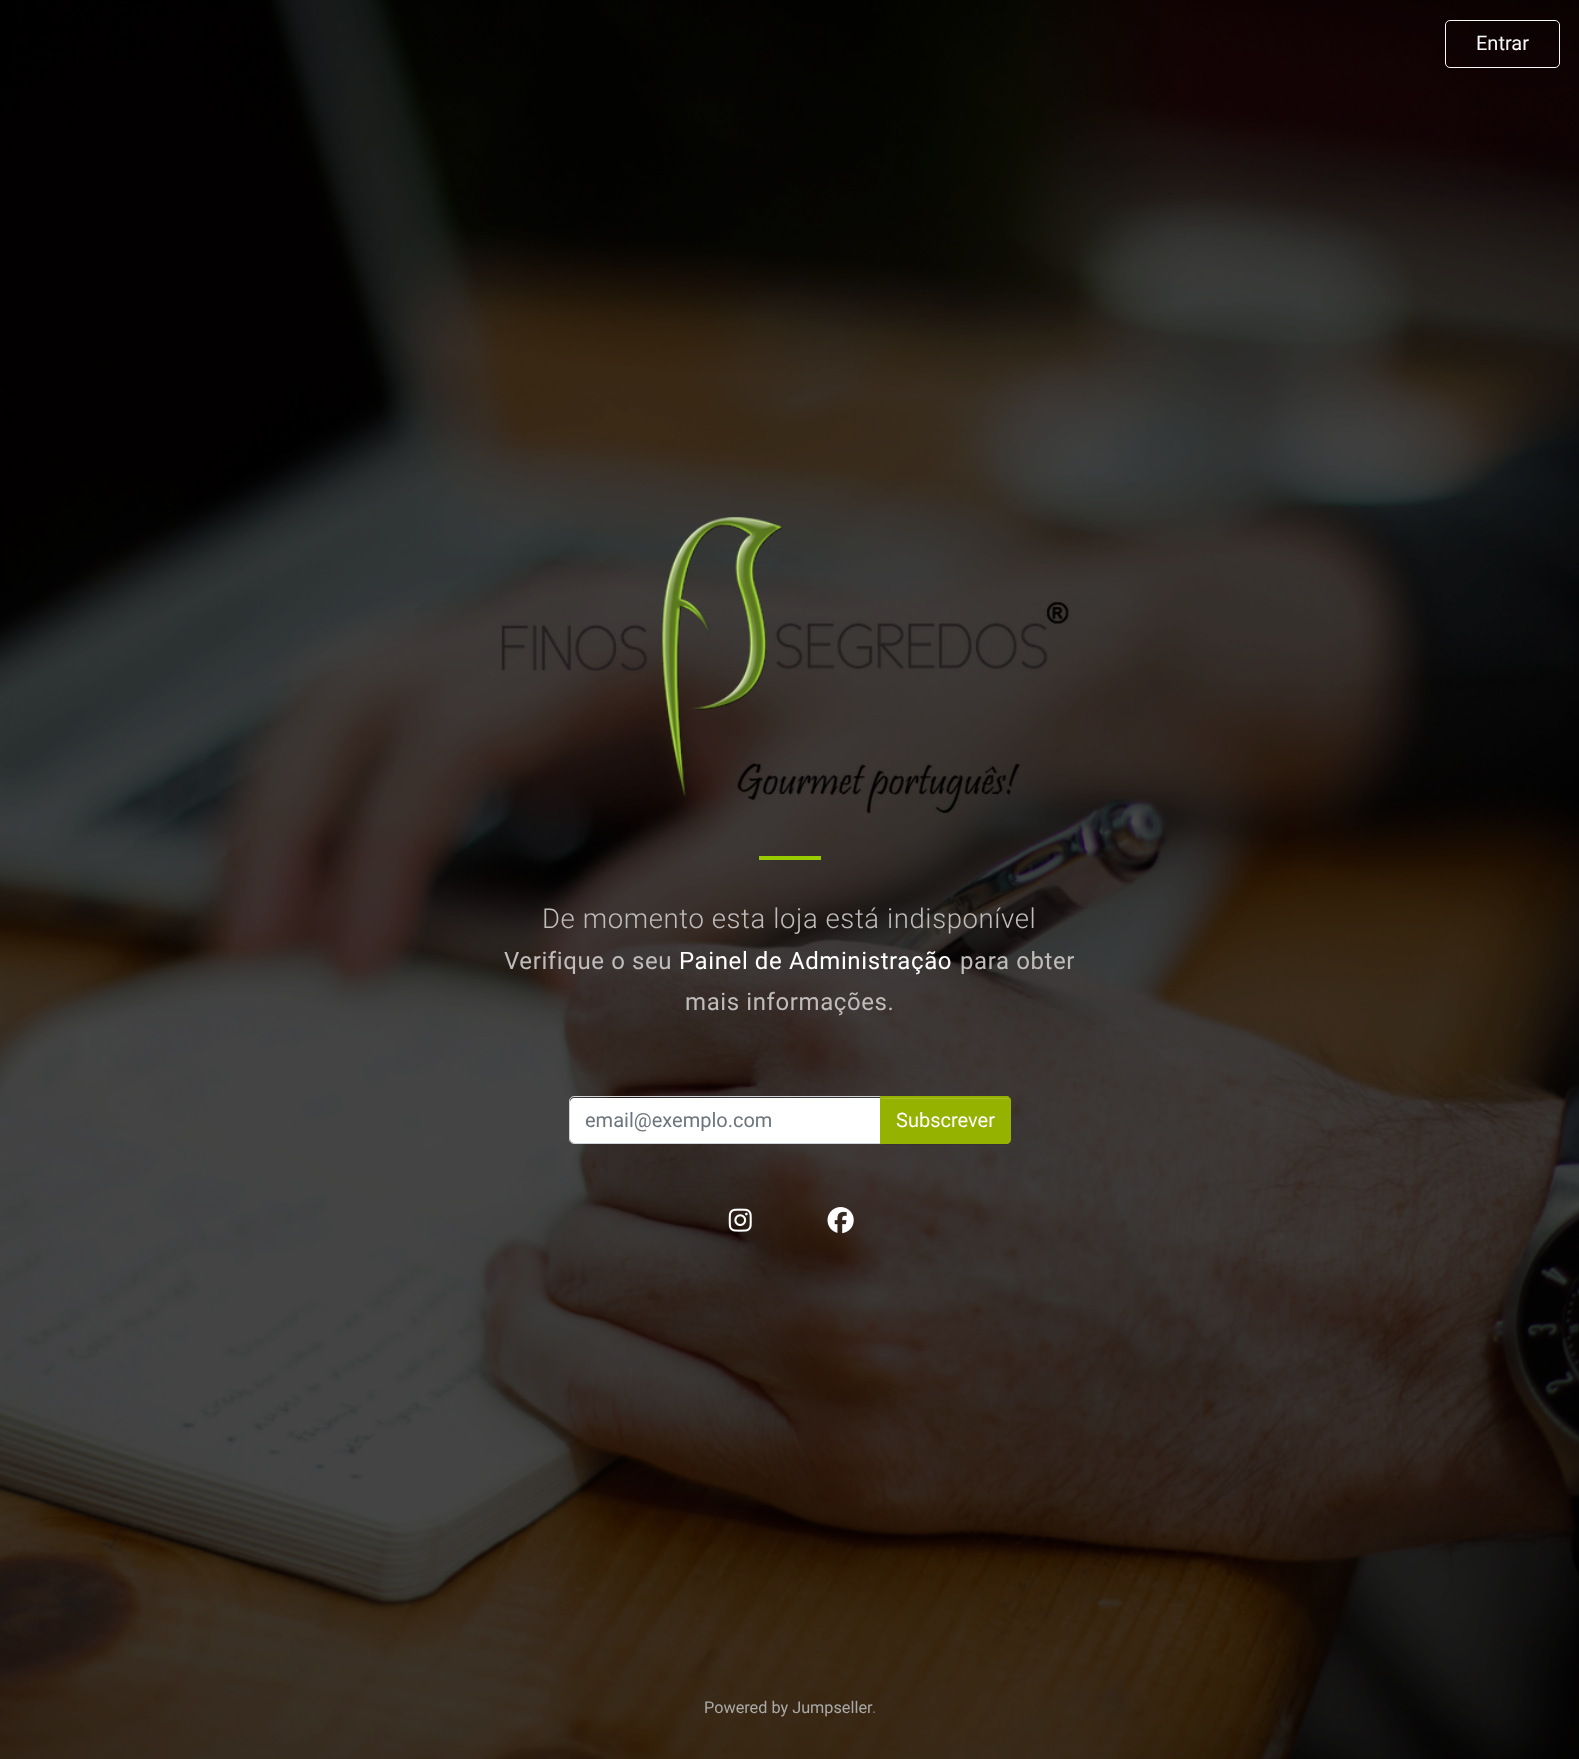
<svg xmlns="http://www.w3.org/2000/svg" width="1579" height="1759">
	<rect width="100%" height="100%" fill="#FFFFFF" />
	<image x="0" y="0" width="1579" height="1759" href="assets/img1.png" />
	<rect x="1445.5" y="20.5" width="114" height="47" rx="4.5" fill="none" stroke="#F8F9FA" />
	<text x="1476" y="50" font-family="Roboto" font-size="20" fill="#F8F9FA">Entrar</text>
	<image x="501" y="517" width="568" height="297" href="assets/img2.png" />
	<rect x="759" y="856" width="62" height="4" fill="#99CC00" />
	<text x="542" y="928" font-family="Roboto" font-size="27.5" font-weight="300" letter-spacing="0.6" fill="#BFBDBC">De momento esta loja está indisponível</text>
	<text x="504" y="969" font-family="Roboto" font-size="24" letter-spacing="0.6" fill="#BFBDBC">Verifique o seu</text>
	<text x="679" y="969" font-family="Roboto" font-size="24" letter-spacing="0.6" fill="#FFFFFF">Painel de Administração</text>
	<g font-family="Roboto" font-size="24" letter-spacing="0.6" fill="#BFBDBC">
		<text x="960" y="969">para obter</text>
		<text x="685" y="1010">mais informações.</text>
	</g>
	<path d="M574 1098H880V1143H574C572 1143 570 1141 570 1139V1102C570 1100 572 1098 574 1098Z" fill="#FFFFFF" />
	<path d="M574 1096.5H880.5V1143.5H574C571.5 1143.5 569.5 1141.5 569.5 1139V1101C569.5 1098.5 571.5 1096.5 574 1096.5Z" fill="none" stroke="#CED4DA" />
	<text x="585" y="1127" font-family="Roboto" font-size="20" fill="#6C757D">email@exemplo.com</text>
	<rect x="880" y="1098" width="131" height="47" rx="5" fill="#000000" fill-opacity="0.07" filter="blur(0.5px)" />
	<path d="M880 1096H1006C1009 1096 1011 1098 1011 1101V1139C1011 1142 1009 1144 1006 1144H880Z" fill="#95B200" />
	<path d="M881 1099H1006C1008 1099 1010 1100 1010 1102C1010 1100 1008 1098 1006 1098H881Z" fill="#A5BE26" />
	<path d="M880.5 1096.5H1006C1008.5 1096.5 1010.5 1098.5 1010.5 1101V1139C1010.5 1141.5 1008.5 1143.5 1006 1143.5H880.5Z" fill="none" stroke="#95B200" />
	<text x="896" y="1127" font-family="Roboto" font-size="20" fill="#FFFFFF">Subscrever</text>
	<image x="728" y="1208" width="24" height="24" href="assets/img3.png" />
	<image x="827" y="1207" width="27" height="27" href="assets/img4.png" />
	<text x="704" y="1713" font-family="Roboto" font-size="16.25" fill="#AAAAAA">Powered by Jumpseller</text>
	<text x="872" y="1713" font-family="Roboto" font-size="16.25" fill="#777777">.</text>
</svg>
